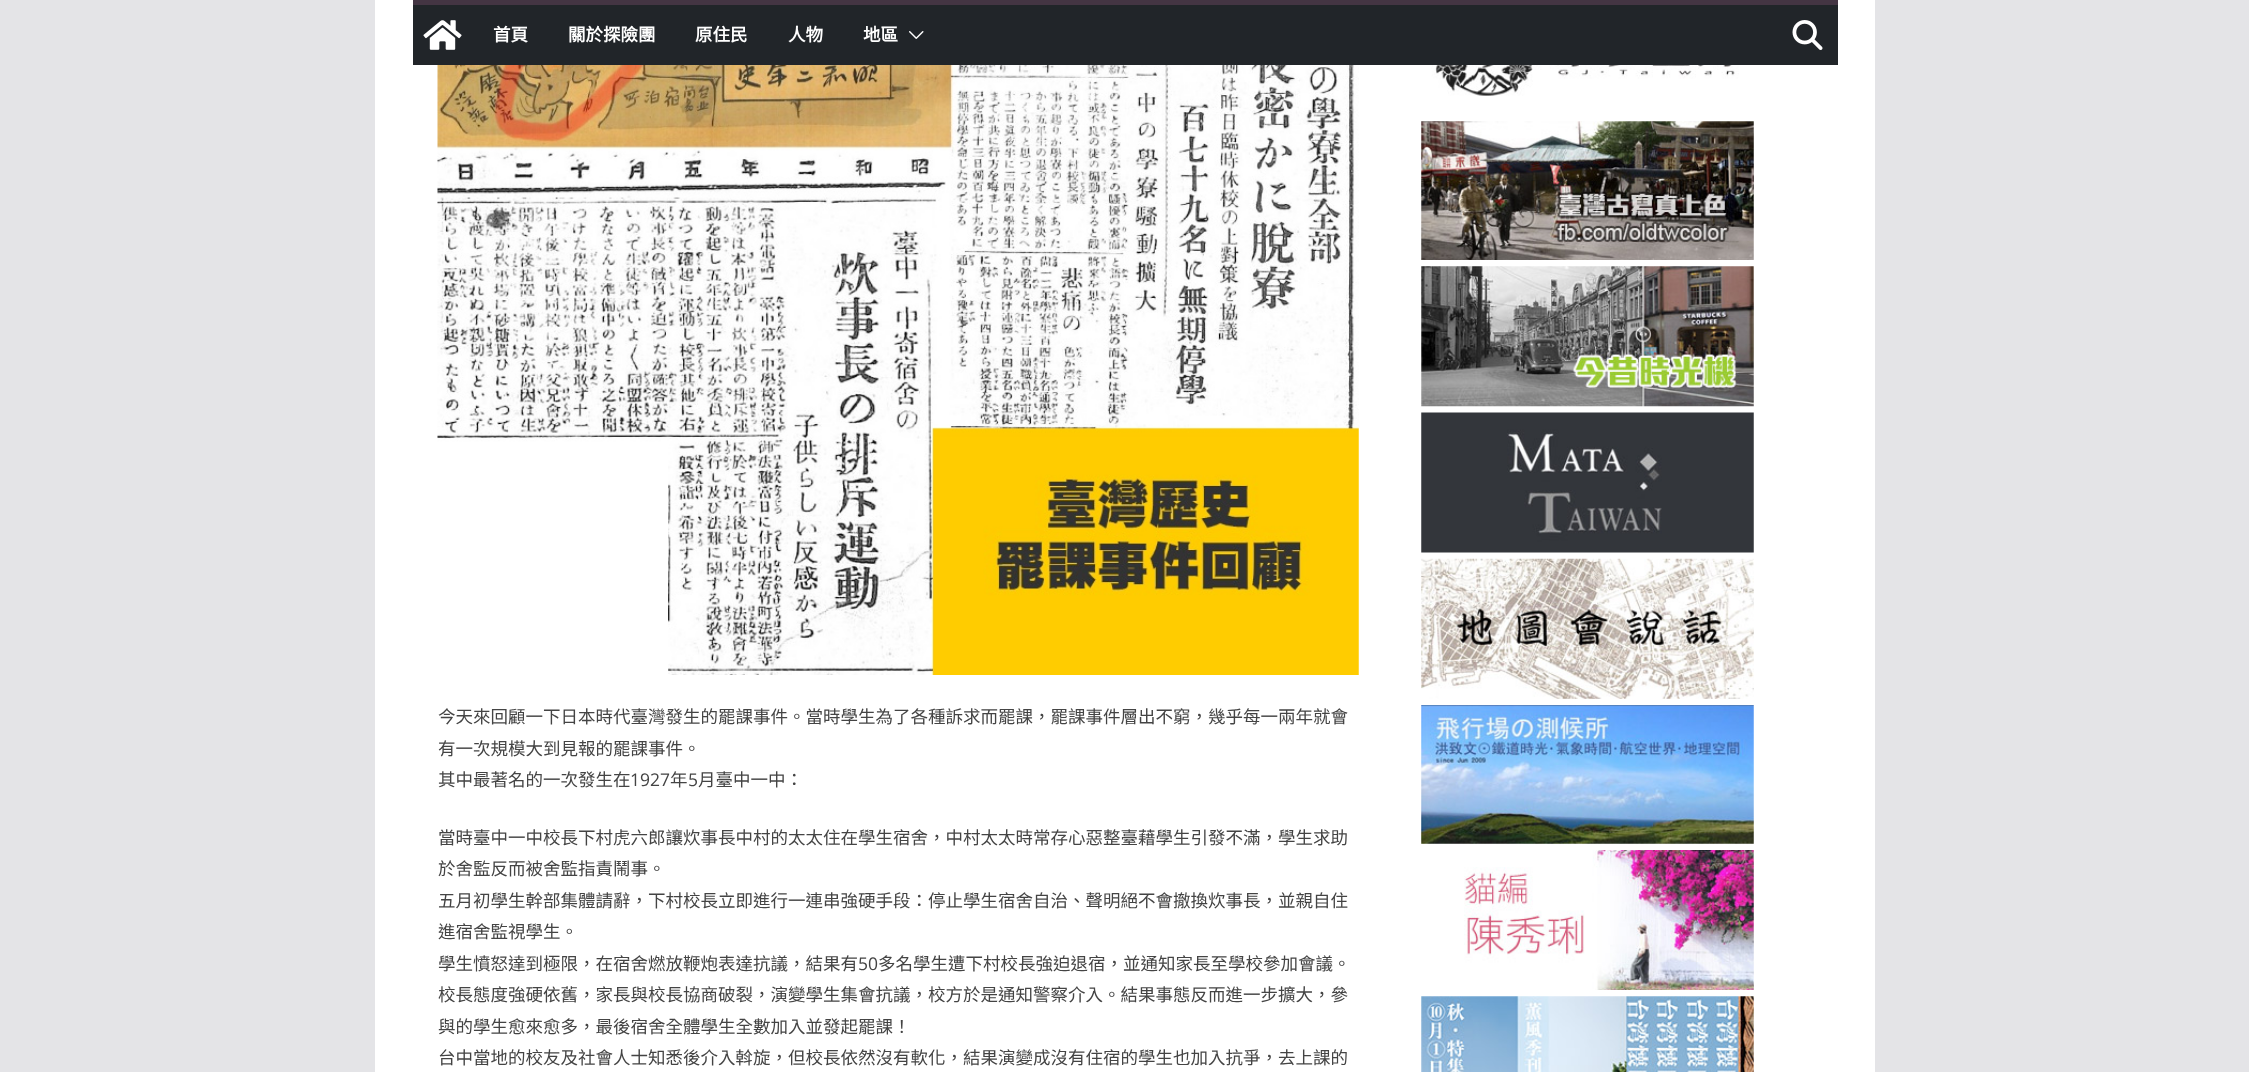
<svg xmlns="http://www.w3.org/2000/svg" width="2249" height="1072">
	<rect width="100%" height="100%" fill="#E4E4E7" />
	<rect x="375" y="0" width="1500" height="1072" fill="#FFFFFF" />
	<rect x="413" y="5" width="1425" height="60" fill="#212529" />
	<rect x="413" y="0" width="1425" height="5" fill="#443543" />
	<image x="423" y="20" width="39" height="30" href="assets/img1.png" />
	<g font-family="Noto Sans CJK TC" font-size="17.5" font-weight="700" fill="#FFFFFF">
		<text x="493" y="41">首頁</text>
		<text x="568" y="41">關於探險團</text>
		<text x="695" y="41">原住民</text>
		<text x="788" y="41">人物</text>
		<text x="863" y="41">地區</text>
	</g>
	<image x="909" y="31" width="15" height="8" href="assets/img2.png" />
	<image x="1792" y="20" width="31" height="30" href="assets/img3.png" />
	<image x="437" y="65" width="922" height="610" href="assets/img4.png" />
	<g font-family="Noto Sans CJK TC" font-size="17.5" fill="#444444">
		<text x="438" y="723">今天來回顧一下日本時代臺灣發生的罷課事件。當時學生為了各種訴求而罷課，罷課事件層出不窮，幾乎每一兩年就會</text>
		<text x="438" y="755">有一次規模大到見報的罷課事件。</text>
		<text x="438" y="786">其中最著名的一次發生在</text>
	</g>
	<text x="630" y="786" font-family="Open Sans" font-size="17.5" fill="#444444">1927</text>
	<text x="670" y="786" font-family="Noto Sans CJK TC" font-size="17.5" fill="#444444">年</text>
	<text x="688" y="786" font-family="Open Sans" font-size="17.5" fill="#444444">5</text>
	<g font-family="Noto Sans CJK TC" font-size="17.5" fill="#444444">
		<text x="698" y="786">月臺中一中：</text>
		<text x="438" y="844">當時臺中一中校長下村虎六郎讓炊事長中村的太太住在學生宿舍，中村太太時常存心惡整臺藉學生引發不滿，學生求助</text>
		<text x="438" y="875">於舍監反而被舍監指責鬧事。</text>
		<text x="438" y="907">五月初學生幹部集體請辭，下村校長立即進行一連串強硬手段：停止學生宿舍自治、聲明絕不會撤換炊事長，並親自住</text>
		<text x="438" y="938">進宿舍監視學生。</text>
		<text x="438" y="970">學生憤怒達到極限，在宿舍燃放鞭炮表達抗議，結果有</text>
	</g>
	<text x="858" y="970" font-family="Open Sans" font-size="17.5" fill="#444444">50</text>
	<g font-family="Noto Sans CJK TC" font-size="17.5" fill="#444444">
		<text x="878" y="970">多名學生遭下村校長強迫退宿，並通知家長至學校參加會議。</text>
		<text x="438" y="1001">校長態度強硬依舊，家長與校長協商破裂，演變學生集會抗議，校方於是通知警察介入。結果事態反而進一步擴大，參</text>
		<text x="438" y="1033">與的學生愈來愈多，最後宿舍全體學生全數加入並發起罷課！</text>
		<text x="438" y="1064">台中當地的校友及社會人士知悉後介入斡旋，但校長依然沒有軟化，結果演變成沒有住宿的學生也加入抗爭，去上課的</text>
	</g>
	<image x="1431" y="65" width="308" height="31" href="assets/img5.png" />
	<image x="1421" y="121" width="333" height="139" href="assets/img6.png" />
	<image x="1421" y="266" width="333" height="141" href="assets/img7.png" />
	<image x="1421" y="412" width="333" height="141" href="assets/img8.png" />
	<image x="1421" y="558" width="333" height="141" href="assets/img9.png" />
	<image x="1421" y="705" width="333" height="139" href="assets/img10.png" />
	<image x="1464" y="850" width="290" height="140" href="assets/img11.png" />
	<image x="1421" y="996" width="333" height="76" href="assets/img12.png" />
</svg>
